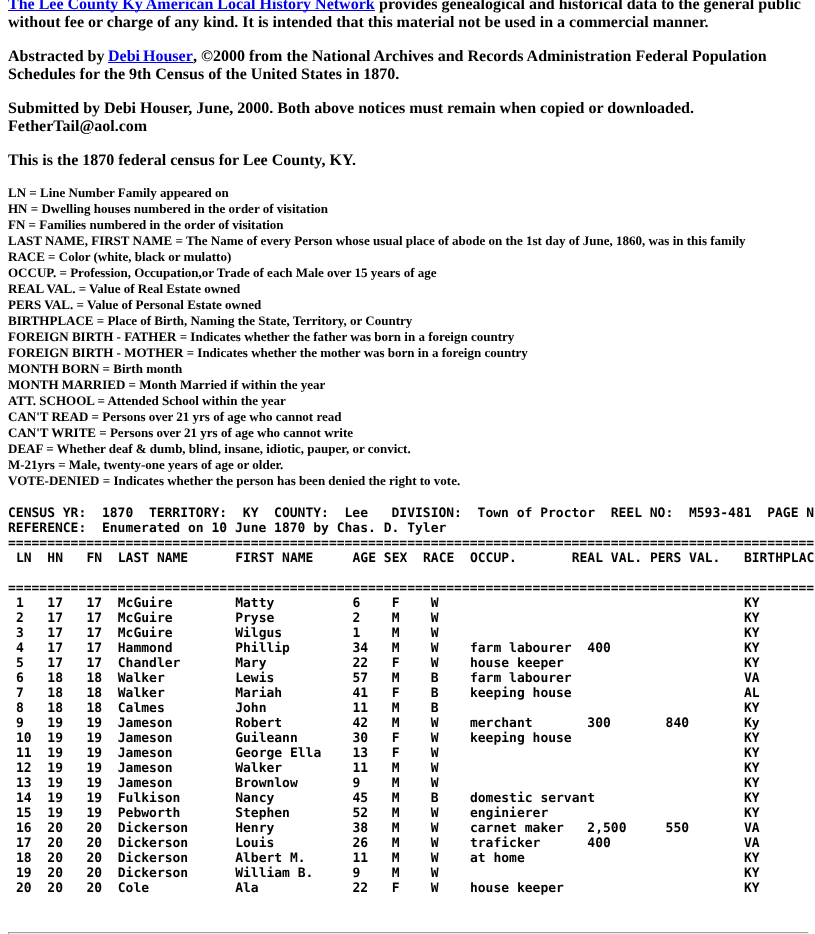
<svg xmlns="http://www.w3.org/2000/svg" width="815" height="934">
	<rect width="100%" height="100%" fill="#FFFFFF" />
	<rect x="8" y="10" width="367" height="1" fill="#0000EE" />
	<text x="8" y="9" font-family="Liberation Serif" font-size="16" font-weight="700" fill="#0000EE">The Lee County Ky American Local History Network</text>
	<g font-family="Liberation Serif" font-size="16" font-weight="700" fill="#000000">
		<text x="379" y="9">provides genealogical and historical data to the general public</text>
		<text x="8" y="27">without fee or charge of any kind. It is intended that this material not be used in a commercial manner.</text>
		<text x="8" y="61">Abstracted by</text>
	</g>
	<text x="108" y="61" word-spacing="-1" font-family="Liberation Serif" font-size="16" font-weight="700" fill="#0000EE">Debi Houser</text>
	<rect x="108" y="62" width="85" height="1" fill="#0000EE" />
	<g font-family="Liberation Serif" font-size="16" font-weight="700" fill="#000000">
		<text x="193" y="61">, ©2000 from the National Archives and Records Administration Federal Population</text>
		<text x="8" y="79">Schedules for the 9th Census of the United States in 1870.</text>
		<text x="8" y="113">Submitted by Debi Houser, June, 2000. Both above notices must remain when copied or downloaded.</text>
		<text x="8" y="131">FetherTail@aol.com</text>
		<text x="8" y="165">This is the 1870 federal census for Lee County, KY.</text>
	</g>
	<g font-family="Liberation Serif" font-size="13" font-weight="700" fill="#000000">
		<text x="8" y="197">LN = Line Number Family appeared on</text>
		<text x="8" y="213">HN = Dwelling houses numbered in the order of visitation</text>
		<text x="8" y="229">FN = Families numbered in the order of visitation</text>
		<text x="8" y="245">LAST NAME, FIRST NAME = The Name of every Person whose usual place of abode on the 1st day of June, 1860, was in this family</text>
		<text x="8" y="261">RACE = Color (white, black or mulatto)</text>
		<text x="8" y="277">OCCUP. = Profession, Occupation,or Trade of each Male over 15 years of age</text>
		<text x="8" y="293">REAL VAL. = Value of Real Estate owned</text>
		<text x="8" y="309">PERS VAL. = Value of Personal Estate owned</text>
		<text x="8" y="325">BIRTHPLACE = Place of Birth, Naming the State, Territory, or Country</text>
		<text x="8" y="341">FOREIGN BIRTH - FATHER = Indicates whether the father was born in a foreign country</text>
		<text x="8" y="357">FOREIGN BIRTH - MOTHER = Indicates whether the mother was born in a foreign country</text>
		<text x="8" y="373">MONTH BORN = Birth month</text>
		<text x="8" y="389">MONTH MARRIED = Month Married if within the year</text>
		<text x="8" y="405">ATT. SCHOOL = Attended School within the year</text>
		<text x="8" y="421">CAN'T READ = Persons over 21 yrs of age who cannot read</text>
		<text x="8" y="437">CAN'T WRITE = Persons over 21 yrs of age who cannot write</text>
		<text x="8" y="453">DEAF = Whether deaf &amp; dumb, blind, insane, idiotic, pauper, or convict.</text>
		<text x="8" y="469">M-21yrs = Male, twenty-one years of age or older.</text>
		<text x="8" y="485">VOTE-DENIED = Indicates whether the person has been denied the right to vote.</text>
	</g>
	<g font-family="DejaVu Sans Mono" font-size="13" font-weight="700" fill="#000000">
		<text x="8" y="517" xml:space="preserve">CENSUS YR:  1870  TERRITORY:  KY  COUNTY:  Lee   DIVISION:  Town of Proctor  REEL NO:  M593-481  PAGE N</text>
		<text x="8" y="532" xml:space="preserve">REFERENCE:  Enumerated on 10 June 1870 by Chas. D. Tyler</text>
		<text x="8" y="547">=======================================================================================================</text>
		<text x="16" y="562" xml:space="preserve">LN  HN   FN  LAST NAME      FIRST NAME     AGE SEX  RACE  OCCUP.       REAL VAL. PERS VAL.   BIRTHPLAC</text>
		<text x="8" y="592">=======================================================================================================</text>
		<text x="16" y="607" xml:space="preserve">1   17   17  McGuire        Matty          6    F    W                                       KY</text>
		<text x="16" y="622" xml:space="preserve">2   17   17  McGuire        Pryse          2    M    W                                       KY</text>
		<text x="16" y="637" xml:space="preserve">3   17   17  McGuire        Wilgus         1    M    W                                       KY</text>
		<text x="16" y="652" xml:space="preserve">4   17   17  Hammond        Phillip        34   M    W    farm labourer  400                 KY</text>
		<text x="16" y="667" xml:space="preserve">5   17   17  Chandler       Mary           22   F    W    house keeper                       KY</text>
		<text x="16" y="682" xml:space="preserve">6   18   18  Walker         Lewis          57   M    B    farm labourer                      VA</text>
		<text x="16" y="697" xml:space="preserve">7   18   18  Walker         Mariah         41   F    B    keeping house                      AL</text>
		<text x="16" y="712" xml:space="preserve">8   18   18  Calmes         John           11   M    B                                       KY</text>
		<text x="16" y="727" xml:space="preserve">9   19   19  Jameson        Robert         42   M    W    merchant       300       840       Ky</text>
		<text x="16" y="742" xml:space="preserve">10  19   19  Jameson        Guileann       30   F    W    keeping house                      KY</text>
		<text x="16" y="757" xml:space="preserve">11  19   19  Jameson        George Ella    13   F    W                                       KY</text>
		<text x="16" y="772" xml:space="preserve">12  19   19  Jameson        Walker         11   M    W                                       KY</text>
		<text x="16" y="787" xml:space="preserve">13  19   19  Jameson        Brownlow       9    M    W                                       KY</text>
		<text x="16" y="802" xml:space="preserve">14  19   19  Fulkison       Nancy          45   M    B    domestic servant                   KY</text>
		<text x="16" y="817" xml:space="preserve">15  19   19  Pebworth       Stephen        52   M    W    enginierer                         KY</text>
		<text x="16" y="832" xml:space="preserve">16  20   20  Dickerson      Henry          38   M    W    carnet maker   2,500     550       VA</text>
		<text x="16" y="847" xml:space="preserve">17  20   20  Dickerson      Louis          26   M    W    traficker      400                 VA</text>
		<text x="16" y="862" xml:space="preserve">18  20   20  Dickerson      Albert M.      11   M    W    at home                            KY</text>
		<text x="16" y="877" xml:space="preserve">19  20   20  Dickerson      William B.     9    M    W                                       KY</text>
		<text x="16" y="892" xml:space="preserve">20  20   20  Cole           Ala            22   F    W    house keeper                       KY</text>
	</g>
	<rect x="8" y="932" width="801" height="1" fill="#9F9F9F" />
	<rect x="808" y="932" width="1" height="2" fill="#EEEEEE" />
	<rect x="8" y="933" width="801" height="1" fill="#EEEEEE" />
	<rect x="8" y="932" width="1" height="2" fill="#9F9F9F" />
</svg>
